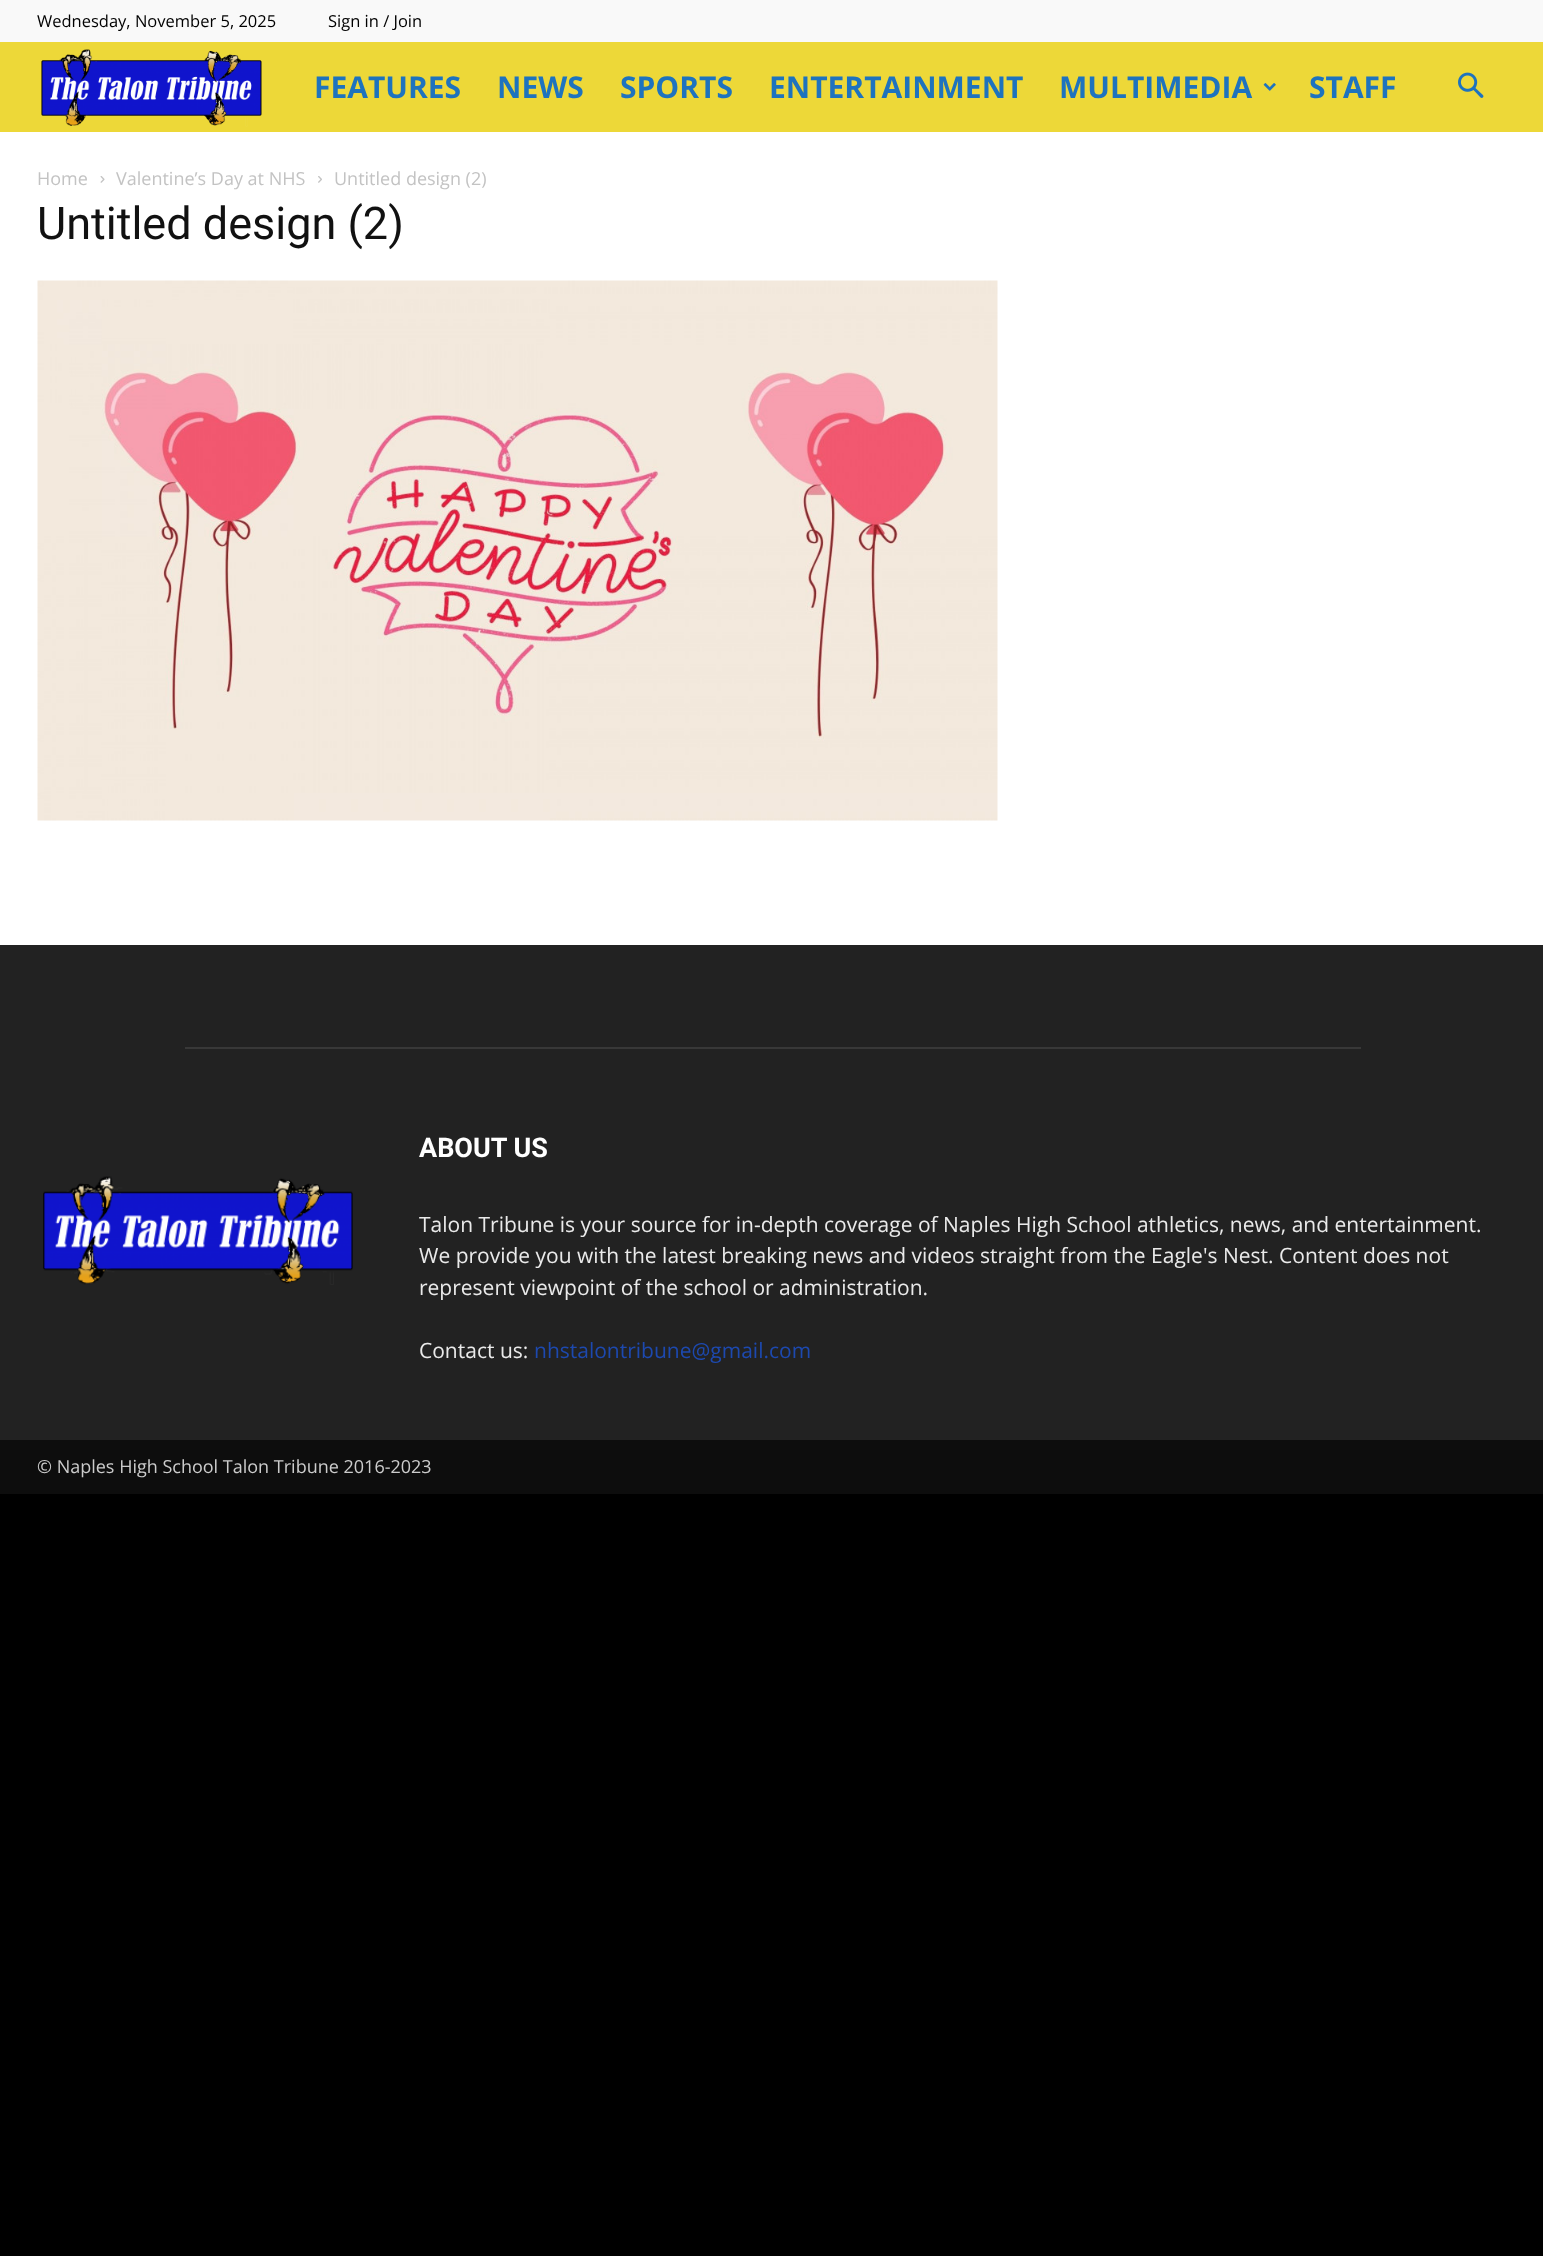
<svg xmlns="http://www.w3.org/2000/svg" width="1543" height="2256">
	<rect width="100%" height="100%" fill="#000000" />
	<rect x="0" y="0" width="1543" height="42" fill="#F9F9F9" />
	<g font-family="Open Sans" font-size="16.5" fill="#000000">
		<text x="37" y="27">Wednesday, November 5, 2025</text>
		<text x="328" y="27">Sign in / Join</text>
	</g>
	<rect x="0" y="42" width="1543" height="90" fill="#EDD838" />
	<image x="41" y="49" width="221" height="78" href="assets/img1.png" />
	<g font-family="Open Sans" font-size="30" font-weight="700" fill="#1E73BE">
		<text x="314" y="98">FEATURES</text>
		<text x="497" y="98">NEWS</text>
		<text x="620" y="98">SPORTS</text>
		<text x="769" y="98">ENTERTAINMENT</text>
		<text x="1059" y="98">MULTIMEDIA</text>
	</g>
	<image x="1263" y="83" width="13" height="8" href="assets/img2.png" />
	<text x="1309" y="98" font-family="Open Sans" font-size="30" font-weight="700" fill="#1E73BE">STAFF</text>
	<image x="1458" y="72" width="26" height="26" href="assets/img3.png" />
	<rect x="0" y="132" width="1543" height="813" fill="#FFFFFF" />
	<text x="37" y="185" font-family="Open Sans" font-size="18" fill="#C3C3C3">Home</text>
	<image x="100" y="176" width="5" height="7" href="assets/img4.png" />
	<text x="116" y="185" font-family="Open Sans" font-size="18" fill="#C3C3C3">Valentine’s Day at NHS</text>
	<image x="318" y="176" width="4" height="7" href="assets/img5.png" />
	<text x="334" y="185" font-family="Open Sans" font-size="18" fill="#C3C3C3">Untitled design (2)</text>
	<text x="37" y="239" font-family="Roboto" font-size="45" fill="#111111">Untitled design (2)</text>
	<image x="37" y="280" width="961" height="541" href="assets/img6.png" />
	<rect x="0" y="945" width="1543" height="495" fill="#222222" />
	<rect x="185" y="1047" width="1176" height="2" fill="#383838" />
	<image x="43" y="1176" width="310" height="109" href="assets/img7.png" />
	<text x="419" y="1157" font-family="Roboto" font-size="27" font-weight="700" fill="#FFFFFF">ABOUT US</text>
	<g font-family="Open Sans" font-size="21" fill="#EAEAEA">
		<text x="419" y="1232">Talon Tribune is your source for in-depth coverage of Naples High School athletics, news, and entertainment.</text>
		<text x="419" y="1263">We provide you with the latest breaking news and videos straight from the Eagle's Nest. Content does not</text>
		<text x="419" y="1295">represent viewpoint of the school or administration.</text>
		<text x="419" y="1358">Contact us:</text>
	</g>
	<text x="534" y="1358" font-family="Open Sans" font-size="21" fill="#1D49AF">nhstalontribune@gmail.com</text>
	<rect x="0" y="1440" width="1543" height="54" fill="#0D0D0D" />
	<text x="37" y="1473" font-family="Open Sans" font-size="18" fill="#CCCCCC">© Naples High School Talon Tribune 2016-2023</text>
</svg>
